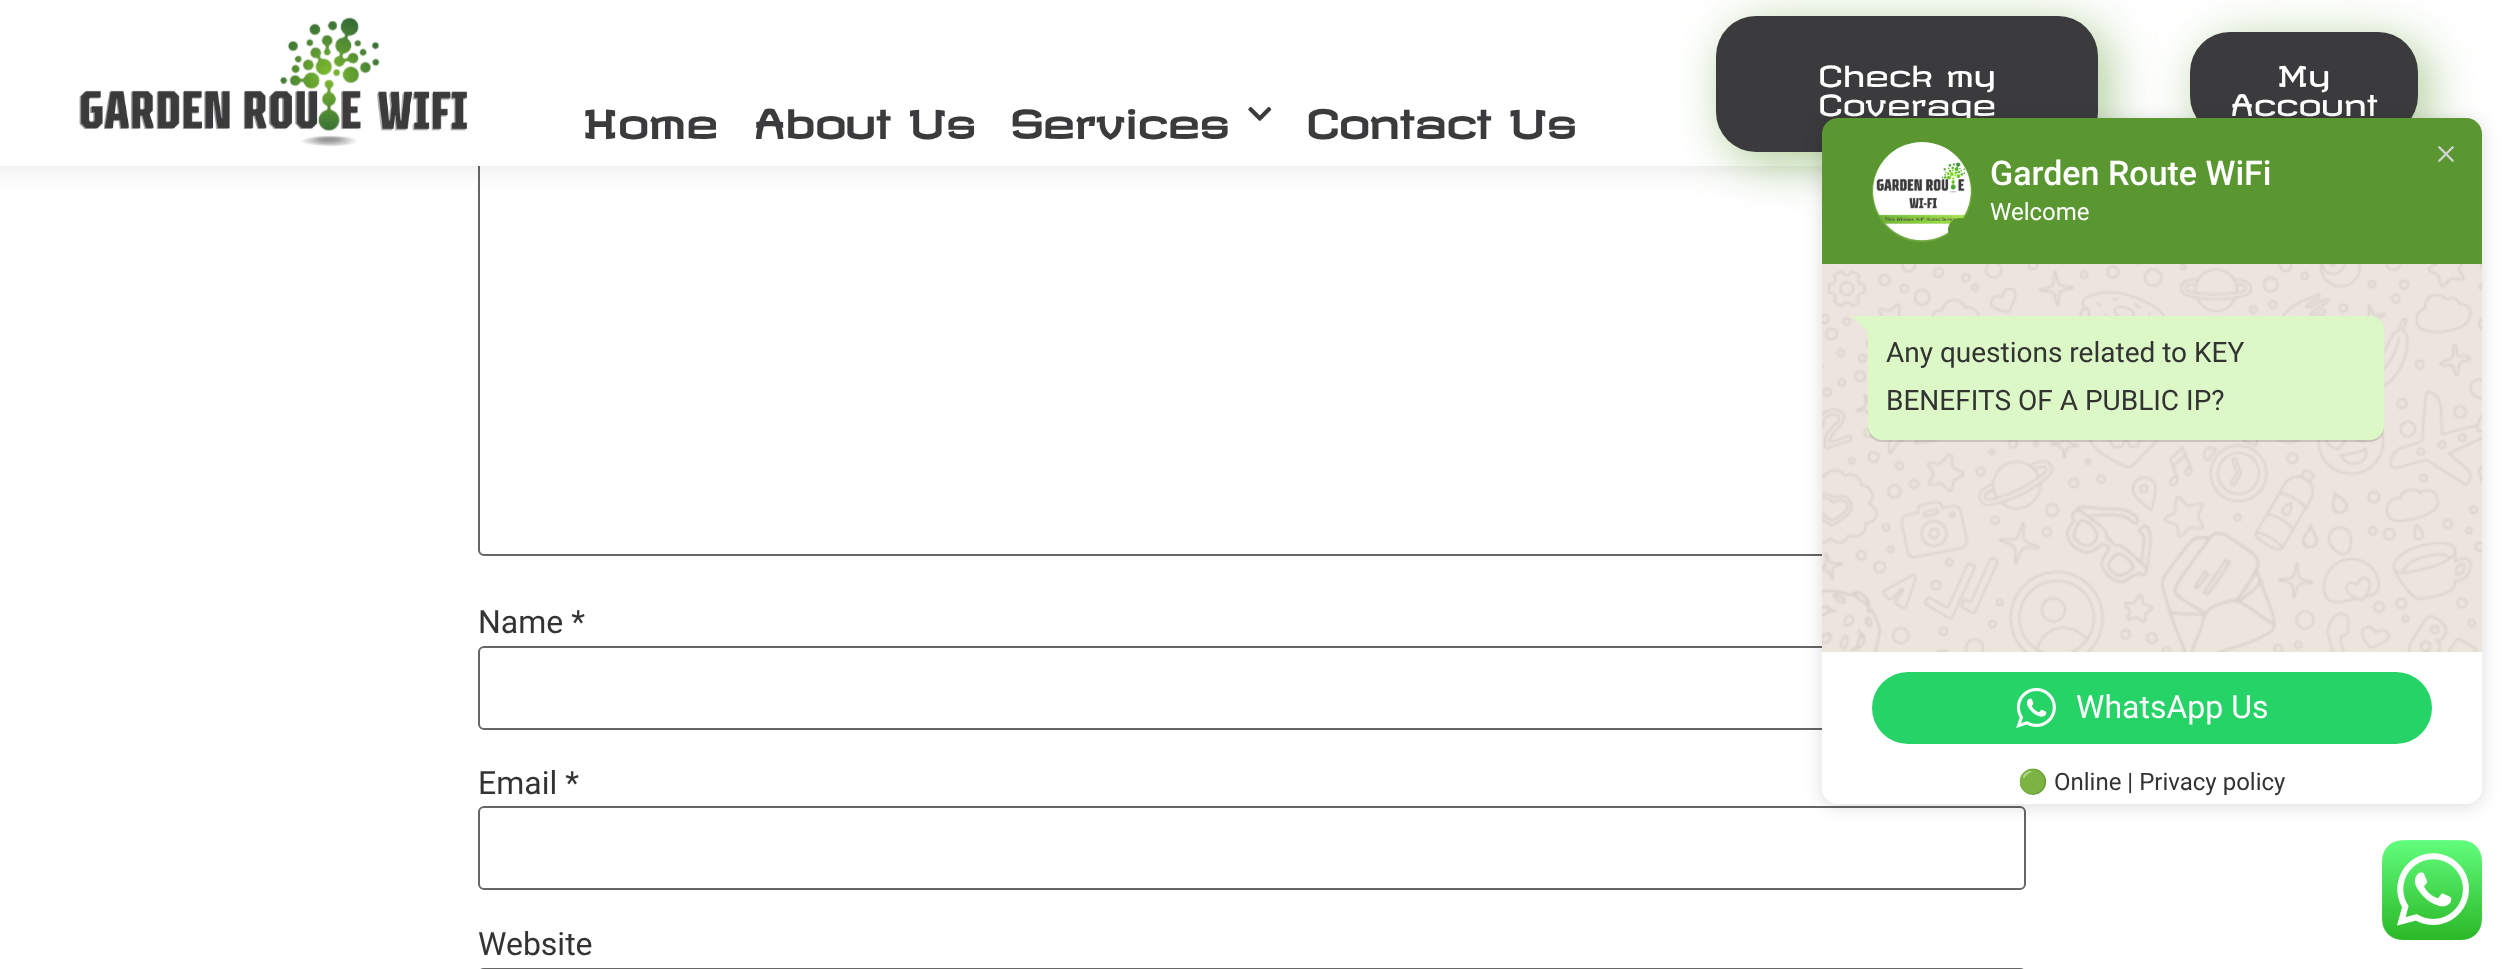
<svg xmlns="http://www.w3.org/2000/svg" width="2511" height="969">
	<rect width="100%" height="100%" fill="#FFFFFF" />
	<rect x="479" y="137" width="1546" height="418" rx="5" fill="none" stroke="#666666" stroke-width="2" />
	<rect x="-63" y="2" width="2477" height="150" fill="#000000" fill-opacity="0.22" filter="blur(21px)" />
	<path d="M0 0H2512V162C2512 164 2510 166 2508 166H0Z" fill="#FFFFFF" />
	<image x="79" y="17" width="389" height="130" href="assets/img1.png" />
	<rect x="1726" y="26" width="382" height="136" rx="40" fill="#5E9C31" fill-opacity="0.52" filter="blur(25px)" />
	<rect x="1716" y="16" width="382" height="136" rx="40" fill="#3B3B3D" />
	<g font-family="Revalia" font-size="28.75" fill="#FFFFFF">
		<text x="1819" y="87">Check my</text>
		<text x="1819" y="116">Coverage</text>
	</g>
	<rect x="2200" y="42" width="228" height="104" rx="40" fill="#5E9C31" fill-opacity="0.52" filter="blur(25px)" />
	<rect x="2190" y="32" width="228" height="104" rx="40" fill="#3B3B3D" />
	<g font-family="Revalia" font-size="28.75" fill="#FFFFFF">
		<text x="2277" y="87">My</text>
		<text x="2230" y="116">Account</text>
	</g>
	<g font-family="Revalia" font-size="38.5" font-weight="700" fill="#3B3B3D">
		<text x="582" y="139">Home</text>
		<text x="753" y="139">About Us</text>
		<text x="1011" y="139">Services</text>
	</g>
	<image x="1248" y="107" width="24" height="14" href="assets/img2.png" />
	<text x="1307" y="139" font-family="Revalia" font-size="38.5" font-weight="700" fill="#3B3B3D">Contact Us</text>
	<text x="478" y="633" font-family="Roboto" font-size="32" fill="#333333">Name *</text>
	<rect x="479" y="647" width="1546" height="82" rx="5" fill="none" stroke="#666666" stroke-width="2" />
	<text x="478" y="794" font-family="Roboto" font-size="32" fill="#333333">Email *</text>
	<rect x="479" y="807" width="1546" height="82" rx="5" fill="none" stroke="#666666" stroke-width="2" />
	<text x="478" y="955" font-family="Roboto" font-size="32" fill="#333333">Website</text>
	<rect x="479" y="969" width="1546" height="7" rx="5" fill="none" stroke="#666666" stroke-width="2" />
	<rect x="1822" y="120" width="660" height="686" rx="16" fill="#000000" fill-opacity="0.14" filter="blur(9px)" />
	<path d="M1838 118H2466C2475 118 2482 125 2482 134V266H1822V134C1822 125 1829 118 1838 118Z" fill="#5A9731" />
	<image x="2438" y="146" width="16" height="16" href="assets/img3.png" />
	<image x="1872" y="142" width="100" height="100" href="assets/img4.png" />
	<circle cx="1960" cy="230" r="10" fill="#5A9731" stroke="#5A9731" stroke-width="4" />
	<text x="1990" y="185" font-family="Roboto" font-size="34" font-weight="500" fill="#FFFFFF">Garden Route WiFi</text>
	<text x="1990" y="220" font-family="Roboto" font-size="24" fill="#FFFFFF">Welcome</text>
	<rect x="1822" y="264" width="660" height="388" fill="#ECE5DD" />
	<image x="1822" y="264" width="660" height="388" href="assets/img5.png" />
	<rect x="1868" y="318" width="516" height="124" rx="14" fill="#000000" fill-opacity="0.14" filter="blur(0.5px)" />
	<path d="M1868 316H2370C2377.5 316 2384 322.5 2384 330V426C2384 433.5 2377.5 440 2370 440H1882C1874.5 440 1868 433.5 1868 426Z" fill="#DCF8C6" />
	<path d="M1852 316H1869.5V333.5Z" fill="#DCF8C6" />
	<g font-family="Roboto" font-size="28" fill="#333333">
		<text x="1886" y="362">Any questions related to KEY</text>
		<text x="1886" y="410">BENEFITS OF A PUBLIC IP?</text>
	</g>
	<rect x="1822" y="652" width="660" height="108" fill="#FFFFFF" />
	<rect x="1872" y="672" width="560" height="72" rx="36" fill="#25D366" />
	<image x="2016" y="688" width="40" height="40" href="assets/img6.png" />
	<text x="2076" y="718" font-family="Roboto" font-size="32" fill="#FFFFFF">WhatsApp Us</text>
	<path d="M1822 760H2482V788C2482 797 2475 804 2466 804H1838C1829 804 1822 797 1822 788Z" fill="#FFFFFF" />
	<text x="2018" y="790" font-family="Noto Color Emoji" font-size="24" fill="#333333">🟢</text>
	<text x="2054" y="790" font-family="Roboto" font-size="24" fill="#333333">Online | Privacy policy</text>
	<image x="2382" y="840" width="100" height="100" href="assets/img7.png" />
</svg>
